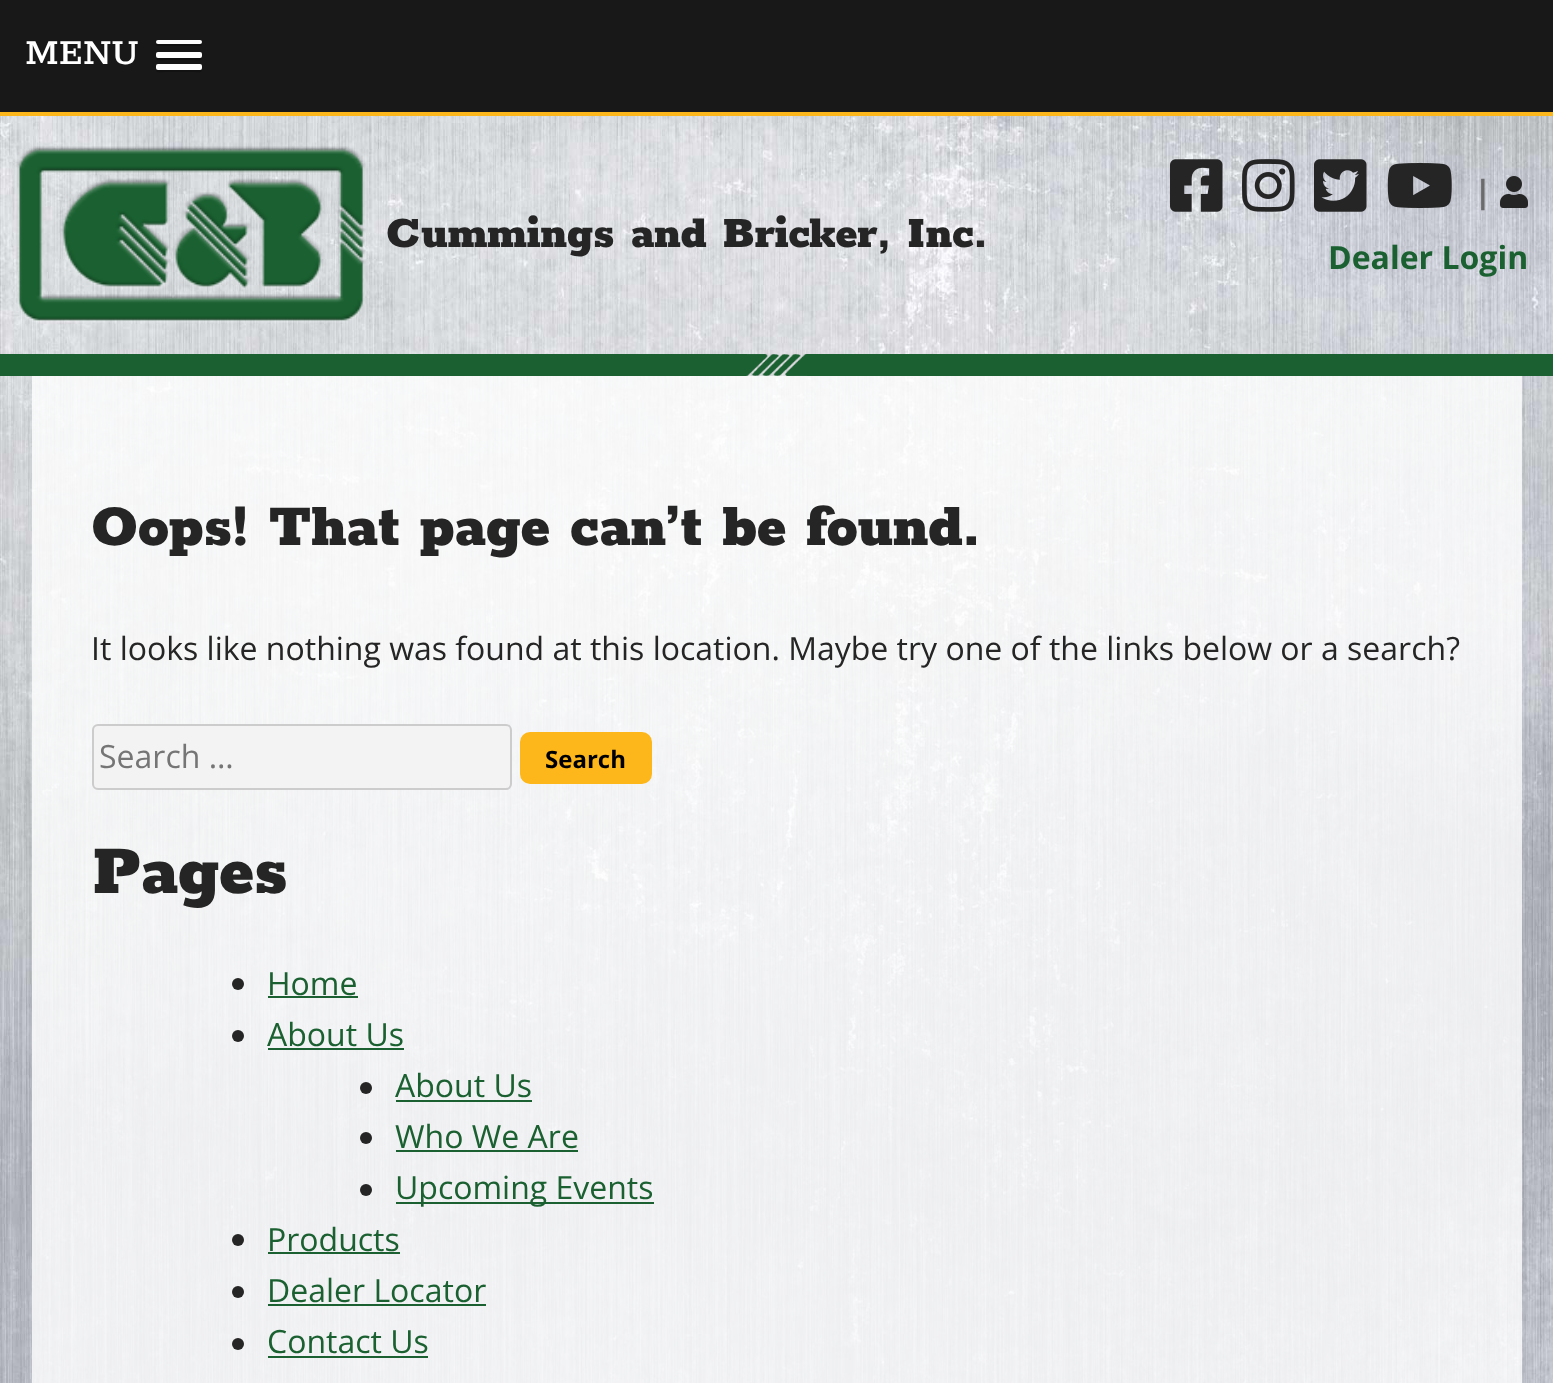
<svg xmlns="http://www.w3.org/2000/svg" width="1553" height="1383">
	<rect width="100%" height="100%" fill="#FFFFFF" />
	<image x="0" y="116" width="1553" height="1267" href="assets/img1.png" />
	<rect x="0" y="0" width="1553" height="112" fill="#181818" />
	<rect x="0" y="112" width="1553" height="4" fill="#FDB71A" />
	<text x="25" y="64" font-family="Rokkitt" font-size="40" font-weight="500" fill="#FFFFFF">MENU</text>
	<path d="M156 43C156 44 156 46 158 46H201C202 45 202 44 202 43L200 44H158Z" fill="#121212" />
	<rect x="156" y="40" width="46" height="4" rx="2" fill="#FFFFFF" />
	<path d="M156 56C156 62 159 60 165 60H193C199 60 202 62 202 56C202 57 201 58 200 58H158C157 58 156 57 156 56Z" fill="#121212" />
	<rect x="156" y="52" width="46" height="6" rx="2" fill="#FFFFFF" />
	<path d="M156 68C156 74 159 72 165 72H193C199 72 202 74 202 68C202 69 201 70 200 70H158C157 70 156 69 156 68Z" fill="#121212" />
	<rect x="156" y="64" width="46" height="6" rx="2" fill="#FFFFFF" />
	<image x="16" y="146" width="350" height="177" href="assets/img2.png" />
	<text x="386" y="247" font-family="Rokkitt" font-size="48" font-weight="900" fill="#252525">Cummings and Bricker, Inc.</text>
	<image x="1170" y="159" width="53" height="53" href="assets/img3.png" />
	<image x="1242" y="159" width="53" height="53" href="assets/img4.png" />
	<image x="1314" y="159" width="53" height="53" href="assets/img5.png" />
	<image x="1387" y="163" width="65" height="45" href="assets/img6.png" />
	<text x="1474" y="203" font-family="Open Sans" font-size="32" font-weight="700" fill="#6B6B6C">|</text>
	<image x="1500" y="176" width="28" height="32" href="assets/img7.png" />
	<text x="1328" y="269" font-family="Open Sans" font-size="32" font-weight="700" fill="#1A6030">Dealer Login</text>
	<image x="0" y="354" width="1553" height="22" href="assets/img8.png" />
	<rect x="32" y="376" width="1490" height="1007" fill="#FFFFFF" fill-opacity="0.8" />
	<text x="91" y="545" font-family="Rokkitt" font-size="64" font-weight="900" fill="#252525">Oops! That page can’t be found.</text>
	<text x="91" y="660" font-family="Open Sans" font-size="32" fill="#252525">It looks like nothing was found at this location. Maybe try one of the links below or a search?</text>
	<rect x="93" y="725" width="418" height="64" rx="5" fill="#F3F3F3" stroke="#CCCCCC" stroke-width="2" />
	<text x="99" y="768" font-family="Open Sans" font-size="32" fill="#757575">Search …</text>
	<rect x="521" y="733" width="130" height="50" rx="9" fill="#FDB71A" stroke="#FDB71A" stroke-width="2" />
	<text x="545" y="768" font-family="Open Sans" font-size="24" font-weight="700" fill="#000000">Search</text>
	<text x="91" y="893" font-family="Rokkitt" font-size="76" font-weight="900" fill="#252525">Pages</text>
	<circle cx="238" cy="984" r="6" fill="#252525" />
	<text x="267" y="995" font-family="Open Sans" font-size="32" fill="#1A6030">Home</text>
	<rect x="268" y="996" width="90" height="2" fill="#1A6030" />
	<circle cx="238" cy="1036" r="6" fill="#252525" />
	<text x="267" y="1046" font-family="Open Sans" font-size="32" fill="#1A6030">About Us</text>
	<rect x="268" y="1048" width="136" height="2" fill="#1A6030" />
	<circle cx="366" cy="1088" r="6" fill="#252525" />
	<text x="395" y="1097" font-family="Open Sans" font-size="32" fill="#1A6030">About Us</text>
	<rect x="396" y="1100" width="136" height="2" fill="#1A6030" />
	<circle cx="366" cy="1138" r="6" fill="#252525" />
	<text x="395" y="1148" font-family="Open Sans" font-size="32" fill="#1A6030">Who We Are</text>
	<rect x="396" y="1150" width="182" height="2" fill="#1A6030" />
	<circle cx="366" cy="1190" r="6" fill="#252525" />
	<rect x="396" y="1202" width="258" height="2" fill="#1A6030" />
	<text x="395" y="1199" font-family="Open Sans" font-size="32" fill="#1A6030">Upcoming Events</text>
	<circle cx="238" cy="1240" r="6" fill="#252525" />
	<text x="267" y="1251" font-family="Open Sans" font-size="32" fill="#1A6030">Products</text>
	<rect x="268" y="1252" width="132" height="2" fill="#1A6030" />
	<circle cx="238" cy="1292" r="6" fill="#252525" />
	<text x="267" y="1302" font-family="Open Sans" font-size="32" fill="#1A6030">Dealer Locator</text>
	<rect x="268" y="1304" width="218" height="2" fill="#1A6030" />
	<circle cx="238" cy="1344" r="6" fill="#252525" />
	<text x="267" y="1353" font-family="Open Sans" font-size="32" fill="#1A6030">Contact Us</text>
	<rect x="268" y="1356" width="160" height="2" fill="#1A6030" />
</svg>
